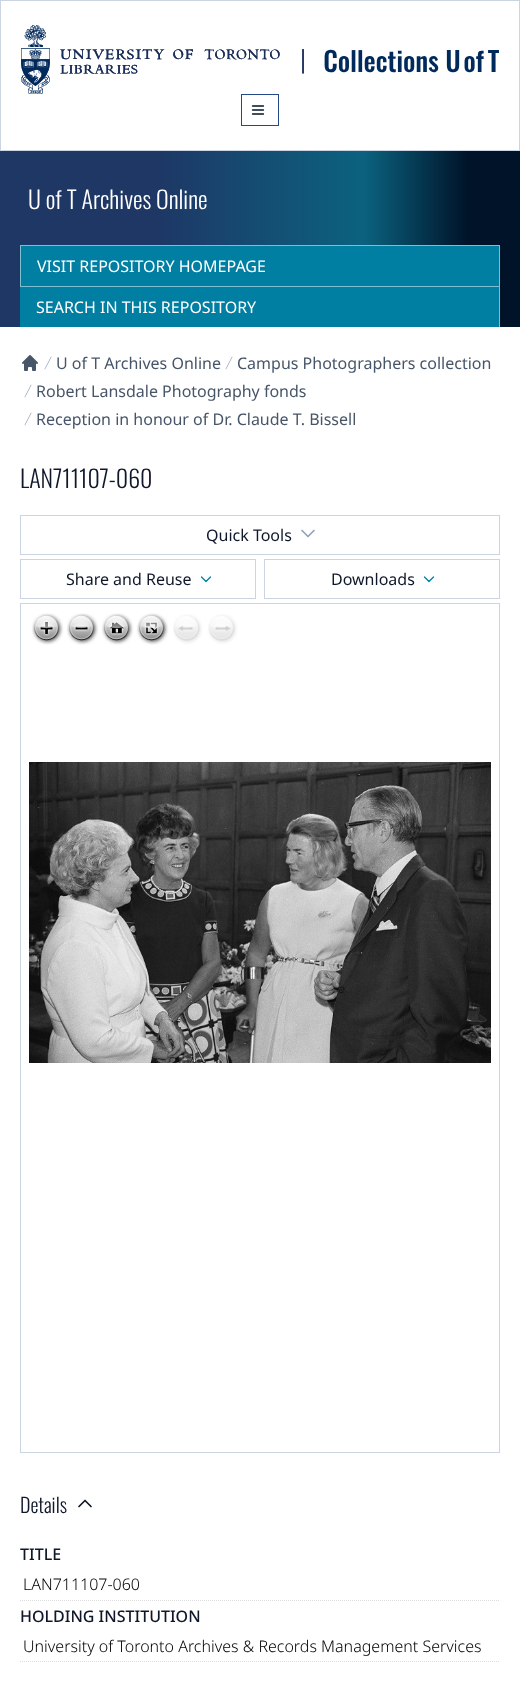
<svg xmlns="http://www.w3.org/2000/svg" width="520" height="1700">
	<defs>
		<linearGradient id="g1" gradientUnits="userSpaceOnUse" x1="0" y1="239" x2="520" y2="239"><stop offset="0.3" stop-color="#1E3765" /><stop offset="0.7" stop-color="#0B627F" /><stop offset="0.9" stop-color="#001329" /></linearGradient>
	</defs>
	<rect width="100%" height="100%" fill="#FFFFFF" />
	<rect x="0.5" y="0.5" width="519" height="150" fill="none" stroke="#CBD5E1" />
	<image x="21" y="25" width="478" height="69" href="assets/img1.png" />
	<rect x="241.5" y="94.5" width="37" height="31" fill="none" stroke="#214887" />
	<path d="M252.5 106H263.5M252.5 110H263.5M252.5 114H263.5" fill="none" stroke="#001329" stroke-width="1.3" stroke-linecap="round" stroke-linejoin="round" />
	<rect x="0" y="151" width="520" height="176" fill="url(#g1)" />
	<text x="28" y="209" font-family="Oswald" font-size="24" font-weight="300" fill="#FFFFFF">U of T Archives Online</text>
	<rect x="20" y="245" width="480" height="82" fill="#007FA3" />
	<path d="M20 245H500L499 246H21Z" fill="#80BFD1" />
	<path d="M500 245V286H499V246Z" fill="#FFFFFF" fill-opacity="0.5" />
	<path d="M20 286V245L21 246V286Z" fill="#FFFFFF" fill-opacity="0.5" />
	<text x="37" y="272" font-family="Noto Sans" font-size="16" fill="#FFFFFF">VISIT REPOSITORY HOMEPAGE</text>
	<path d="M20 286H500L499 287H20Z" fill="#80BFD1" />
	<path d="M500 286V327H499V287Z" fill="#FFFFFF" fill-opacity="0.5" />
	<text x="36" y="313" font-family="Noto Sans" font-size="16" fill="#FFFFFF">SEARCH IN THIS REPOSITORY</text>
	<image x="22" y="355" width="16" height="16" href="assets/img2.png" />
	<path d="M44.5 369L51 356.5L51.5 357L45 369.5Z" fill="#94A3B8" />
	<text x="56" y="369" font-family="Noto Sans" font-size="16" fill="#475569">U of T Archives Online</text>
	<path d="M225.5 369L232 356.5L232.5 357L226 369.5Z" fill="#94A3B8" />
	<text x="237" y="369" font-family="Noto Sans" font-size="16" fill="#475569">Campus Photographers collection</text>
	<path d="M24.5 397L31 384.5L31.5 385L25 397.5ZM24.5 425L31 412.5L31.5 413L25 425.5Z" fill="#94A3B8" />
	<g font-family="Noto Sans" font-size="16" fill="#475569">
		<text x="36" y="397">Robert Lansdale Photography fonds</text>
		<text x="36" y="425">Reception in honour of Dr. Claude T. Bissell</text>
	</g>
	<text x="20" y="488" font-family="Oswald" font-size="24" font-weight="300" fill="#0F172A">LAN711107-060</text>
	<rect x="20.5" y="515.5" width="479" height="39" fill="none" stroke="#CBD5E1" />
	<text x="206" y="541" font-family="Noto Sans" font-size="16" fill="#0F172A">Quick Tools</text>
	<path d="M314 530.5L308 536.5L302 530.5" fill="none" stroke="#94A3B8" stroke-width="1.7" stroke-linecap="round" stroke-linejoin="round" />
	<rect x="20.5" y="559.5" width="235" height="39" fill="none" stroke="#CBD5E1" />
	<text x="66" y="585" font-family="Noto Sans" font-size="16" fill="#0F172A">Share and Reuse</text>
	<path d="M210.5 577L206 581.5L201.5 577" fill="none" stroke="#007FA3" stroke-width="1.3" stroke-linecap="round" stroke-linejoin="round" />
	<rect x="264.5" y="559.5" width="235" height="39" fill="none" stroke="#CBD5E1" />
	<text x="331" y="585" font-family="Noto Sans" font-size="16" fill="#0F172A">Downloads</text>
	<path d="M433.5 577L429 581.5L424.5 577" fill="none" stroke="#007FA3" stroke-width="1.3" stroke-linecap="round" stroke-linejoin="round" />
	<rect x="20.5" y="603.5" width="479" height="849" fill="none" stroke="#CBD5E1" />
	<image x="29" y="613" width="462" height="450" href="assets/img3.png" />
	<text x="20" y="1513" font-family="Oswald" font-size="20" font-weight="300" fill="#0F172A">Details</text>
	<path d="M79 1506.5L85 1500.5L91 1506.5" fill="none" stroke="#0F172A" stroke-width="1.7" stroke-linecap="round" stroke-linejoin="round" />
	<text x="20" y="1560" font-family="Noto Sans" font-size="16" font-weight="500" fill="#0F172A">TITLE</text>
	<path d="M20 1600.5H500" fill="none" stroke="#DDDDDD" stroke-dasharray="1 1" />
	<text x="23" y="1590" font-family="Noto Sans" font-size="16" font-weight="300" fill="#000000">LAN711107-060</text>
	<text x="20" y="1622" font-family="Noto Sans" font-size="16" font-weight="500" fill="#0F172A">HOLDING INSTITUTION</text>
	<path d="M20 1661.5H500" fill="none" stroke="#DDDDDD" stroke-dasharray="1 1" />
	<text x="23" y="1652" font-family="Noto Sans" font-size="16" font-weight="300" fill="#000000">University of Toronto Archives &amp; Records Management Services</text>
</svg>
